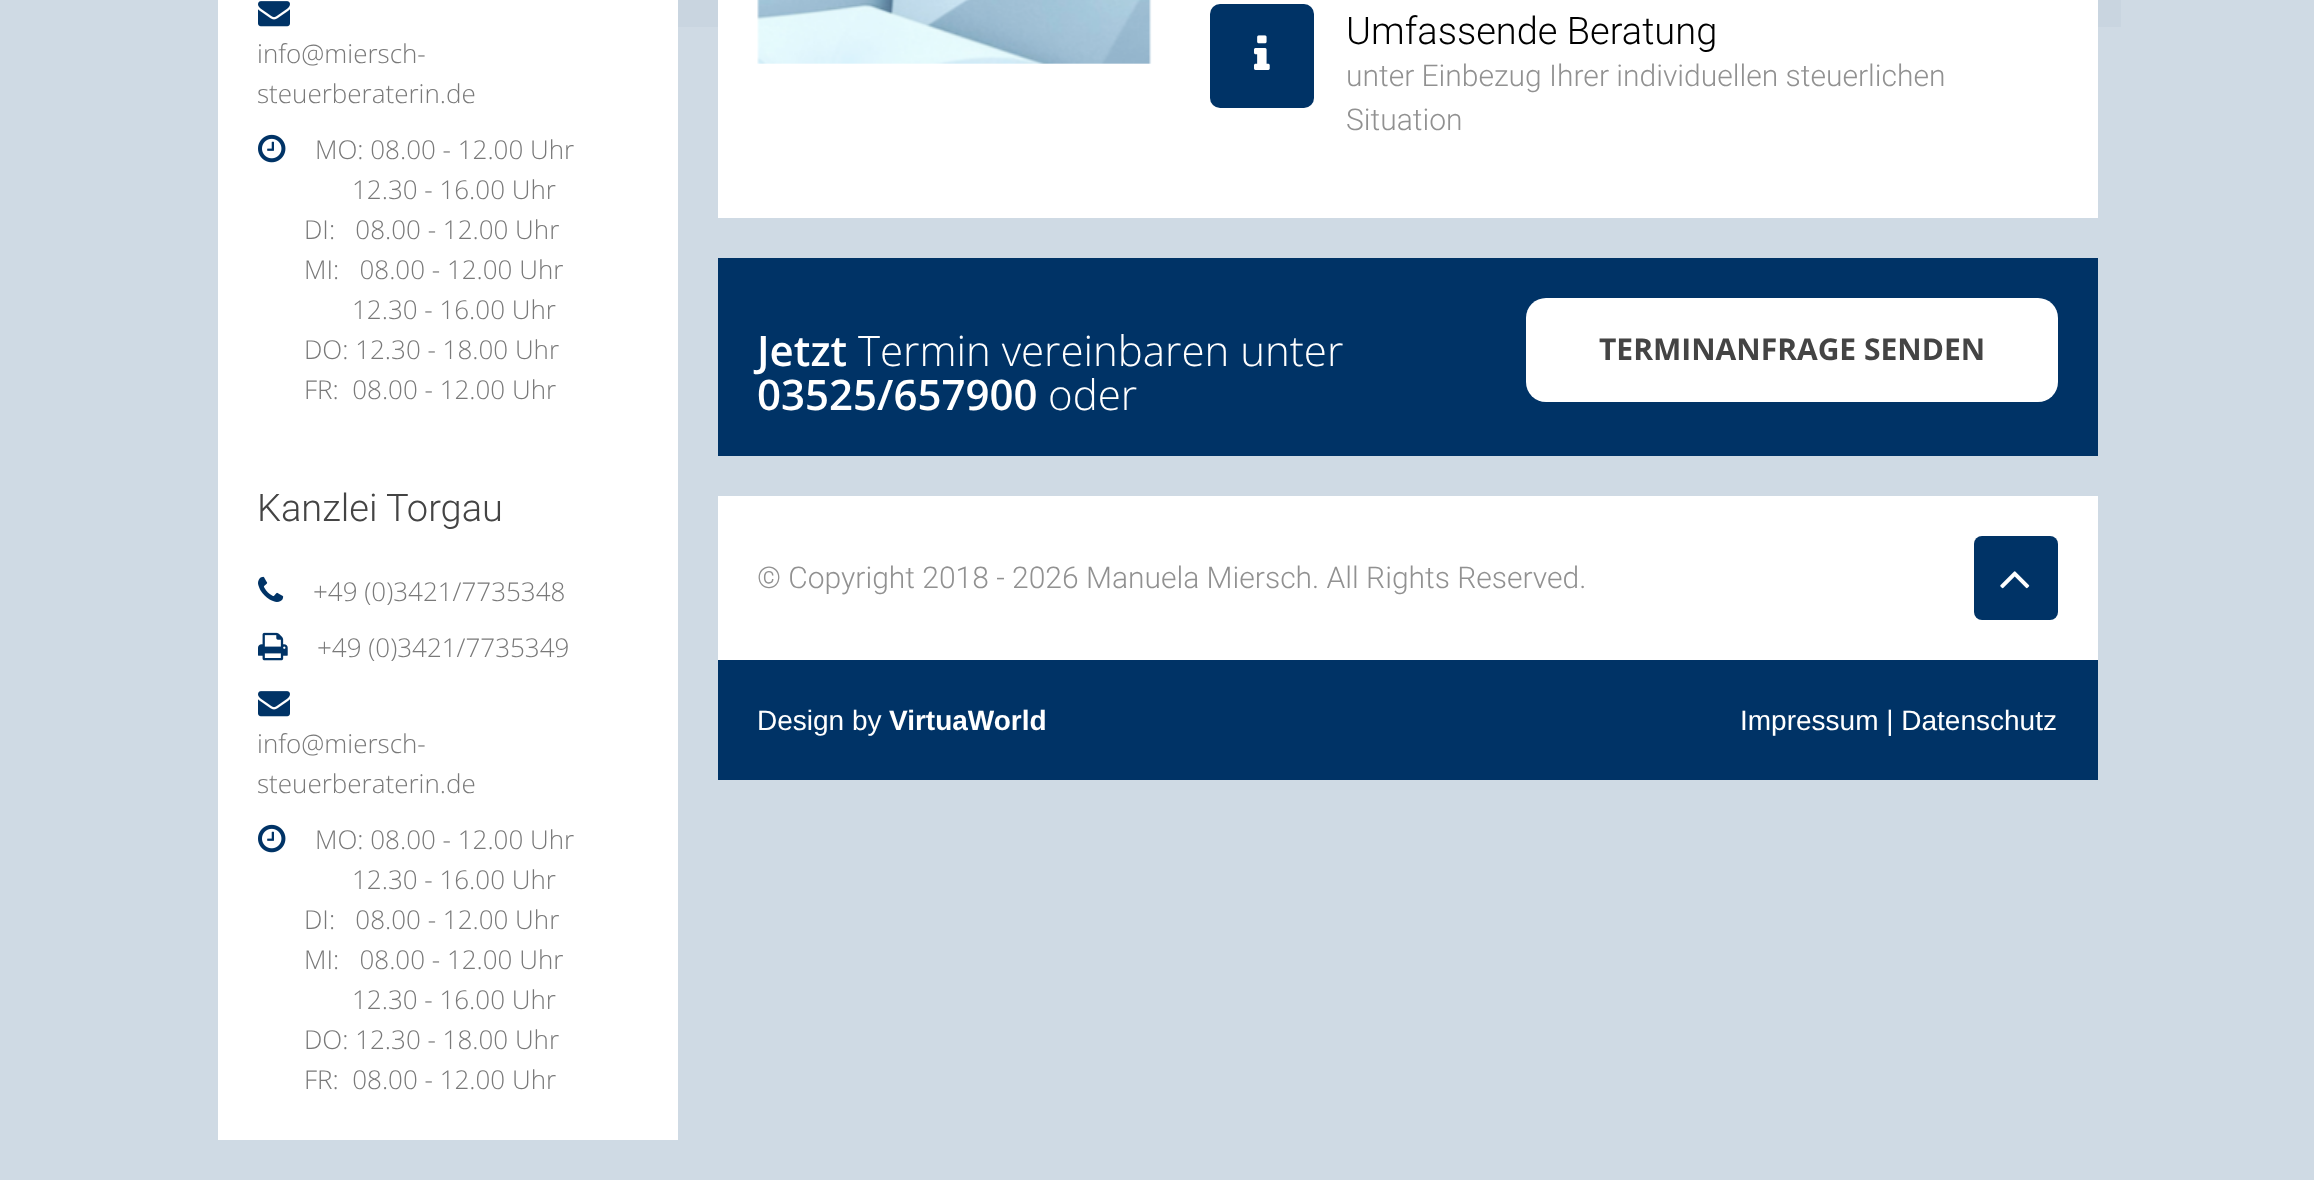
<svg xmlns="http://www.w3.org/2000/svg" width="2314" height="1180">
	<rect width="100%" height="100%" fill="#CFDAE4" />
	<image x="678" y="0" width="1443" height="27" href="assets/img1.png" />
	<rect x="218" y="0" width="460" height="1140" fill="#FFFFFF" />
	<image x="258" y="1" width="32" height="26" href="assets/img2.png" />
	<g font-family="Open Sans" font-size="26" font-weight="300" fill="#797979">
		<text x="257" y="63">info@miersch-</text>
		<text x="257" y="103">steuerberaterin.de</text>
	</g>
	<image x="258" y="134" width="28" height="29" href="assets/img3.png" />
	<g font-family="Open Sans" font-size="26" font-weight="300" fill="#797979">
		<text x="315" y="159">MO: 08.00 - 12.00 Uhr</text>
		<text x="352" y="199">12.30 - 16.00 Uhr</text>
		<text x="304" y="239" xml:space="preserve">DI:   08.00 - 12.00 Uhr</text>
		<text x="304" y="279" xml:space="preserve">MI:   08.00 - 12.00 Uhr</text>
		<text x="352" y="319">12.30 - 16.00 Uhr</text>
		<text x="304" y="359">DO: 12.30 - 18.00 Uhr</text>
		<text x="304" y="399" xml:space="preserve">FR:  08.00 - 12.00 Uhr</text>
	</g>
	<text x="257" y="521" font-family="Roboto" font-size="38" font-weight="300" fill="#444444">Kanzlei Torgau</text>
	<image x="258" y="576" width="26" height="26" href="assets/img4.png" />
	<text x="313" y="601" font-family="Open Sans" font-size="26" font-weight="300" fill="#797979">+49 (0)3421/7735348</text>
	<image x="258" y="632" width="30" height="29" href="assets/img5.png" />
	<text x="317" y="657" font-family="Open Sans" font-size="26" font-weight="300" fill="#797979">+49 (0)3421/7735349</text>
	<image x="258" y="691" width="32" height="26" href="assets/img2.png" />
	<g font-family="Open Sans" font-size="26" font-weight="300" fill="#797979">
		<text x="257" y="753">info@miersch-</text>
		<text x="257" y="793">steuerberaterin.de</text>
	</g>
	<image x="258" y="824" width="28" height="29" href="assets/img3.png" />
	<g font-family="Open Sans" font-size="26" font-weight="300" fill="#797979">
		<text x="315" y="849">MO: 08.00 - 12.00 Uhr</text>
		<text x="352" y="889">12.30 - 16.00 Uhr</text>
		<text x="304" y="929" xml:space="preserve">DI:   08.00 - 12.00 Uhr</text>
		<text x="304" y="969" xml:space="preserve">MI:   08.00 - 12.00 Uhr</text>
		<text x="352" y="1009">12.30 - 16.00 Uhr</text>
		<text x="304" y="1049">DO: 12.30 - 18.00 Uhr</text>
		<text x="304" y="1089" xml:space="preserve">FR:  08.00 - 12.00 Uhr</text>
	</g>
	<rect x="718" y="0" width="1380" height="218" fill="#FFFFFF" />
	<image x="757" y="0" width="395" height="64" href="assets/img6.png" />
	<rect x="1210" y="4" width="104" height="104" rx="10" fill="#003366" />
	<image x="1254" y="35" width="16" height="35" href="assets/img7.png" />
	<text x="1346" y="44" font-family="Roboto" font-size="38" font-weight="300" fill="#000000">Umfassende Beratung</text>
	<g font-family="Roboto" font-size="30" font-weight="300" fill="#919191">
		<text x="1346" y="86">unter Einbezug Ihrer individuellen steuerlichen</text>
		<text x="1346" y="130">Situation</text>
	</g>
	<rect x="718" y="258" width="1380" height="198" fill="#003366" />
	<text x="757" y="366" font-family="Open Sans" font-size="42" font-weight="600" fill="#FFFFFF">Jetzt</text>
	<text x="858" y="366" font-family="Open Sans" font-size="42" font-weight="300" fill="#FFFFFF">Termin vereinbaren unter</text>
	<text x="757" y="410" font-family="Open Sans" font-size="42" font-weight="600" fill="#FFFFFF">03525/657900</text>
	<text x="1048" y="410" font-family="Open Sans" font-size="42" font-weight="300" fill="#FFFFFF">oder</text>
	<rect x="1526" y="298" width="532" height="104" rx="20" fill="#FFFFFF" />
	<text x="1599" y="360" font-family="Open Sans" font-size="30" font-weight="700" fill="#444444">TERMINANFRAGE SENDEN</text>
	<rect x="718" y="496" width="1380" height="164" fill="#FFFFFF" />
	<text x="757" y="588" font-family="Roboto" font-size="30" font-weight="300" fill="#919191">© Copyright 2018 - 2026 Manuela Miersch. All Rights Reserved.</text>
	<rect x="1974" y="536" width="84" height="84" rx="8" fill="#003366" />
	<image x="2000" y="571" width="30" height="18" href="assets/img8.png" />
	<rect x="718" y="660" width="1380" height="120" fill="#003366" />
	<text x="757" y="730" font-family="Liberation Sans" font-size="28" fill="#FFFFFF">Design by</text>
	<text x="889" y="730" font-family="Liberation Sans" font-size="28" font-weight="700" fill="#FFFFFF">VirtuaWorld</text>
	<text x="1740" y="730" font-family="Liberation Sans" font-size="28" fill="#FFFFFF">Impressum | Datenschutz</text>
</svg>
